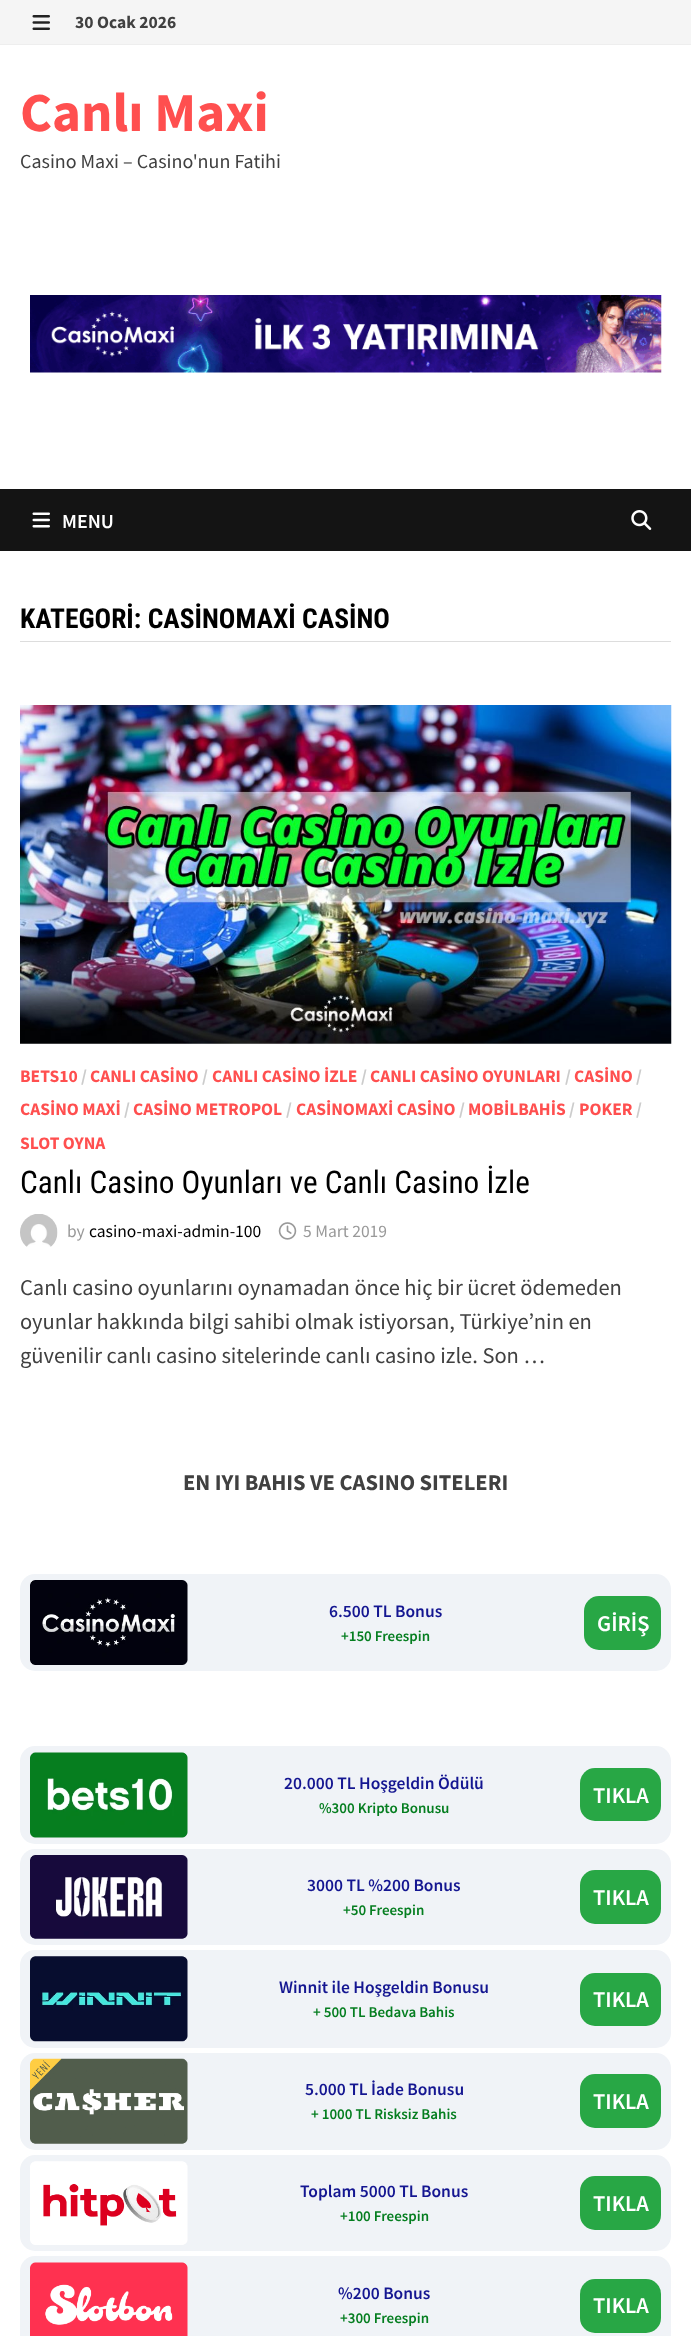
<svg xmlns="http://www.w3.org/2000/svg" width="691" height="2336">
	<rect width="100%" height="100%" fill="#FFFFFF" />
	<rect x="0" y="0" width="691" height="44" fill="#F5F5F5" />
	<rect x="0" y="44" width="691" height="1" fill="#EEEEEE" />
	<image x="32" y="15" width="18" height="15" href="assets/img1.png" />
	<text x="75" y="28" font-family="Source Sans Pro" font-size="17.5" font-weight="700" fill="#404040">30 Ocak 2026</text>
	<text x="20" y="131" font-family="Source Sans Pro" font-size="55" font-weight="700" fill="#FF4F4F">Canlı Maxi</text>
	<text x="20" y="168" font-family="Source Sans Pro" font-size="20" fill="#404040">Casino Maxi – Casino'nun Fatihi</text>
	<image x="30" y="295" width="632" height="78" href="assets/img2.png" />
	<rect x="0" y="489" width="691" height="62" fill="#141414" />
	<image x="32" y="512" width="18" height="16" href="assets/img3.png" />
	<text x="62" y="528" font-family="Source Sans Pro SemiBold" font-size="20" font-weight="600" fill="#FFFFFF">MENU</text>
	<image x="631" y="510" width="21" height="20" href="assets/img4.png" />
	<rect x="20" y="641" width="651" height="1" fill="#DDDDDD" />
	<text x="20" y="628" font-family="Roboto Condensed" font-size="27.5" font-weight="700" fill="#000000">KATEGORİ: CASİNOMAXİ CASİNO</text>
	<image x="20" y="705" width="652" height="339" href="assets/img5.png" />
	<text x="20" y="1082" font-family="Source Sans Pro" font-size="17.5" font-weight="700" fill="#FF4F4F">BETS10</text>
	<text x="81" y="1082" font-family="Source Sans Pro" font-size="17.5" font-weight="700" fill="#CCCCCC">/</text>
	<text x="90" y="1082" font-family="Source Sans Pro" font-size="17.5" font-weight="700" fill="#FF4F4F">CANLI CASİNO</text>
	<text x="202" y="1082" font-family="Source Sans Pro" font-size="17.5" font-weight="700" fill="#CCCCCC">/</text>
	<text x="212" y="1082" font-family="Source Sans Pro" font-size="17.5" font-weight="700" fill="#FF4F4F">CANLI CASİNO İZLE</text>
	<text x="361" y="1082" font-family="Source Sans Pro" font-size="17.5" font-weight="700" fill="#CCCCCC">/</text>
	<text x="370" y="1082" font-family="Source Sans Pro" font-size="17.5" font-weight="700" fill="#FF4F4F">CANLI CASİNO OYUNLARI</text>
	<text x="565" y="1082" font-family="Source Sans Pro" font-size="17.5" font-weight="700" fill="#CCCCCC">/</text>
	<text x="574" y="1082" font-family="Source Sans Pro" font-size="17.5" font-weight="700" fill="#FF4F4F">CASİNO</text>
	<text x="636" y="1082" font-family="Source Sans Pro" font-size="17.5" font-weight="700" fill="#CCCCCC">/</text>
	<text x="20" y="1115" font-family="Source Sans Pro" font-size="17.5" font-weight="700" fill="#FF4F4F">CASİNO MAXİ</text>
	<text x="124" y="1115" font-family="Source Sans Pro" font-size="17.5" font-weight="700" fill="#CCCCCC">/</text>
	<text x="133" y="1115" font-family="Source Sans Pro" font-size="17.5" font-weight="700" fill="#FF4F4F">CASİNO METROPOL</text>
	<text x="286" y="1115" font-family="Source Sans Pro" font-size="17.5" font-weight="700" fill="#CCCCCC">/</text>
	<text x="296" y="1115" font-family="Source Sans Pro" font-size="17.5" font-weight="700" fill="#FF4F4F">CASİNOMAXİ CASİNO</text>
	<text x="459" y="1115" font-family="Source Sans Pro" font-size="17.5" font-weight="700" fill="#CCCCCC">/</text>
	<text x="468" y="1115" font-family="Source Sans Pro" font-size="17.5" font-weight="700" fill="#FF4F4F">MOBİLBAHİS</text>
	<text x="569" y="1115" font-family="Source Sans Pro" font-size="17.5" font-weight="700" fill="#CCCCCC">/</text>
	<text x="579" y="1115" font-family="Source Sans Pro" font-size="17.5" font-weight="700" fill="#FF4F4F">POKER</text>
	<text x="636" y="1115" font-family="Source Sans Pro" font-size="17.5" font-weight="700" fill="#CCCCCC">/</text>
	<text x="20" y="1149" font-family="Source Sans Pro" font-size="17.5" font-weight="700" fill="#FF4F4F">SLOT OYNA</text>
	<text x="20" y="1193" font-family="Roboto Condensed" font-size="31.25" fill="#000000">Canlı Casino Oyunları ve Canlı Casino İzle</text>
	<image x="20" y="1214" width="38" height="33" href="assets/img6.png" />
	<text x="67" y="1237" font-family="Source Sans Pro" font-size="17.5" fill="#999999">by</text>
	<text x="89" y="1237" font-family="Source Sans Pro" font-size="17.5" fill="#000000">casino-maxi-admin-100</text>
	<image x="278" y="1222" width="19" height="18" href="assets/img7.png" />
	<text x="303" y="1237" font-family="Source Sans Pro" font-size="17.5" fill="#999999">5 Mart 2019</text>
	<g font-family="Source Sans Pro" font-size="22.5" fill="#404040">
		<text x="20" y="1295">Canlı casino oyunlarını oynamadan önce hiç bir ücret ödemeden</text>
		<text x="20" y="1329">oyunlar hakkında bilgi sahibi olmak istiyorsan, Türkiye’nin en</text>
		<text x="20" y="1363">güvenilir canlı casino sitelerinde canlı casino izle. Son …</text>
	</g>
	<text x="183" y="1490" font-family="Source Sans Pro" font-size="22.5" font-weight="700" fill="#404040">EN IYI BAHIS VE CASINO SITELERI</text>
	<rect x="20" y="1574" width="651" height="97" rx="15" fill="#F0F3F7" />
	<image x="30" y="1580" width="158" height="85" href="assets/img8.png" />
	<text x="329" y="1617" font-family="Source Sans Pro SemiBold" font-size="17.5" font-weight="600" fill="#141691">6.500 TL Bonus</text>
	<text x="341" y="1641" font-family="Source Sans Pro SemiBold" font-size="15" font-weight="600" fill="#057E20">+150 Freespin</text>
	<rect x="584" y="1596" width="77" height="54" rx="15" fill="#28A745" />
	<text x="597" y="1631" font-family="Source Sans Pro SemiBold" font-size="22.5" font-weight="600" fill="#FFFFFF">GİRİŞ</text>
	<rect x="20" y="1746" width="651" height="98" rx="15" fill="#F0F3F7" />
	<image x="30" y="1752" width="158" height="86" href="assets/img9.png" />
	<text x="284" y="1789" font-family="Source Sans Pro SemiBold" font-size="17.5" font-weight="600" fill="#141691">20.000 TL Hoşgeldin Ödülü</text>
	<text x="319" y="1813" font-family="Source Sans Pro SemiBold" font-size="15" font-weight="600" fill="#057E20">%300 Kripto Bonusu</text>
	<rect x="580" y="1768" width="81" height="53" rx="15" fill="#28A745" />
	<text x="593" y="1803" font-family="Source Sans Pro SemiBold" font-size="22.5" font-weight="600" fill="#FFFFFF">TIKLA</text>
	<rect x="20" y="1849" width="651" height="96" rx="15" fill="#F0F3F7" />
	<image x="30" y="1855" width="158" height="84" href="assets/img10.png" />
	<text x="307" y="1891" font-family="Source Sans Pro SemiBold" font-size="17.5" font-weight="600" fill="#141691">3000 TL %200 Bonus</text>
	<text x="343" y="1915" font-family="Source Sans Pro SemiBold" font-size="15" font-weight="600" fill="#057E20">+50 Freespin</text>
	<rect x="580" y="1870" width="81" height="54" rx="15" fill="#28A745" />
	<text x="593" y="1905" font-family="Source Sans Pro SemiBold" font-size="22.5" font-weight="600" fill="#FFFFFF">TIKLA</text>
	<rect x="20" y="1950" width="651" height="98" rx="15" fill="#F0F3F7" />
	<image x="30" y="1956" width="158" height="86" href="assets/img11.png" />
	<text x="279" y="1993" font-family="Source Sans Pro SemiBold" font-size="17.5" font-weight="600" fill="#141691">Winnit ile Hoşgeldin Bonusu</text>
	<text x="313" y="2017" font-family="Source Sans Pro SemiBold" font-size="15" font-weight="600" fill="#057E20">+ 500 TL Bedava Bahis</text>
	<rect x="580" y="1973" width="81" height="53" rx="15" fill="#28A745" />
	<text x="593" y="2007" font-family="Source Sans Pro SemiBold" font-size="22.5" font-weight="600" fill="#FFFFFF">TIKLA</text>
	<rect x="20" y="2053" width="651" height="97" rx="15" fill="#F0F3F7" />
	<image x="30" y="2058" width="158" height="86" href="assets/img12.png" />
	<text x="305" y="2095" font-family="Source Sans Pro SemiBold" font-size="17.5" font-weight="600" fill="#141691">5.000 TL İade Bonusu</text>
	<text x="311" y="2119" font-family="Source Sans Pro SemiBold" font-size="15" font-weight="600" fill="#057E20">+ 1000 TL Risksiz Bahis</text>
	<rect x="580" y="2074" width="81" height="54" rx="15" fill="#28A745" />
	<text x="593" y="2109" font-family="Source Sans Pro SemiBold" font-size="22.5" font-weight="600" fill="#FFFFFF">TIKLA</text>
	<rect x="20" y="2155" width="651" height="96" rx="15" fill="#F0F3F7" />
	<image x="30" y="2161" width="158" height="84" href="assets/img13.png" />
	<text x="300" y="2197" font-family="Source Sans Pro SemiBold" font-size="17.5" font-weight="600" fill="#141691">Toplam 5000 TL Bonus</text>
	<text x="340" y="2221" font-family="Source Sans Pro SemiBold" font-size="15" font-weight="600" fill="#057E20">+100 Freespin</text>
	<rect x="580" y="2176" width="81" height="54" rx="15" fill="#28A745" />
	<text x="593" y="2211" font-family="Source Sans Pro SemiBold" font-size="22.5" font-weight="600" fill="#FFFFFF">TIKLA</text>
	<rect x="20" y="2256" width="651" height="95" rx="15" fill="#F0F3F7" />
	<image x="30" y="2262" width="158" height="74" href="assets/img14.png" />
	<text x="338" y="2299" font-family="Source Sans Pro SemiBold" font-size="17.5" font-weight="600" fill="#141691">%200 Bonus</text>
	<text x="340" y="2323" font-family="Source Sans Pro SemiBold" font-size="15" font-weight="600" fill="#057E20">+300 Freespin</text>
	<rect x="580" y="2279" width="81" height="54" rx="15" fill="#28A745" />
	<text x="593" y="2313" font-family="Source Sans Pro SemiBold" font-size="22.5" font-weight="600" fill="#FFFFFF">TIKLA</text>
</svg>
